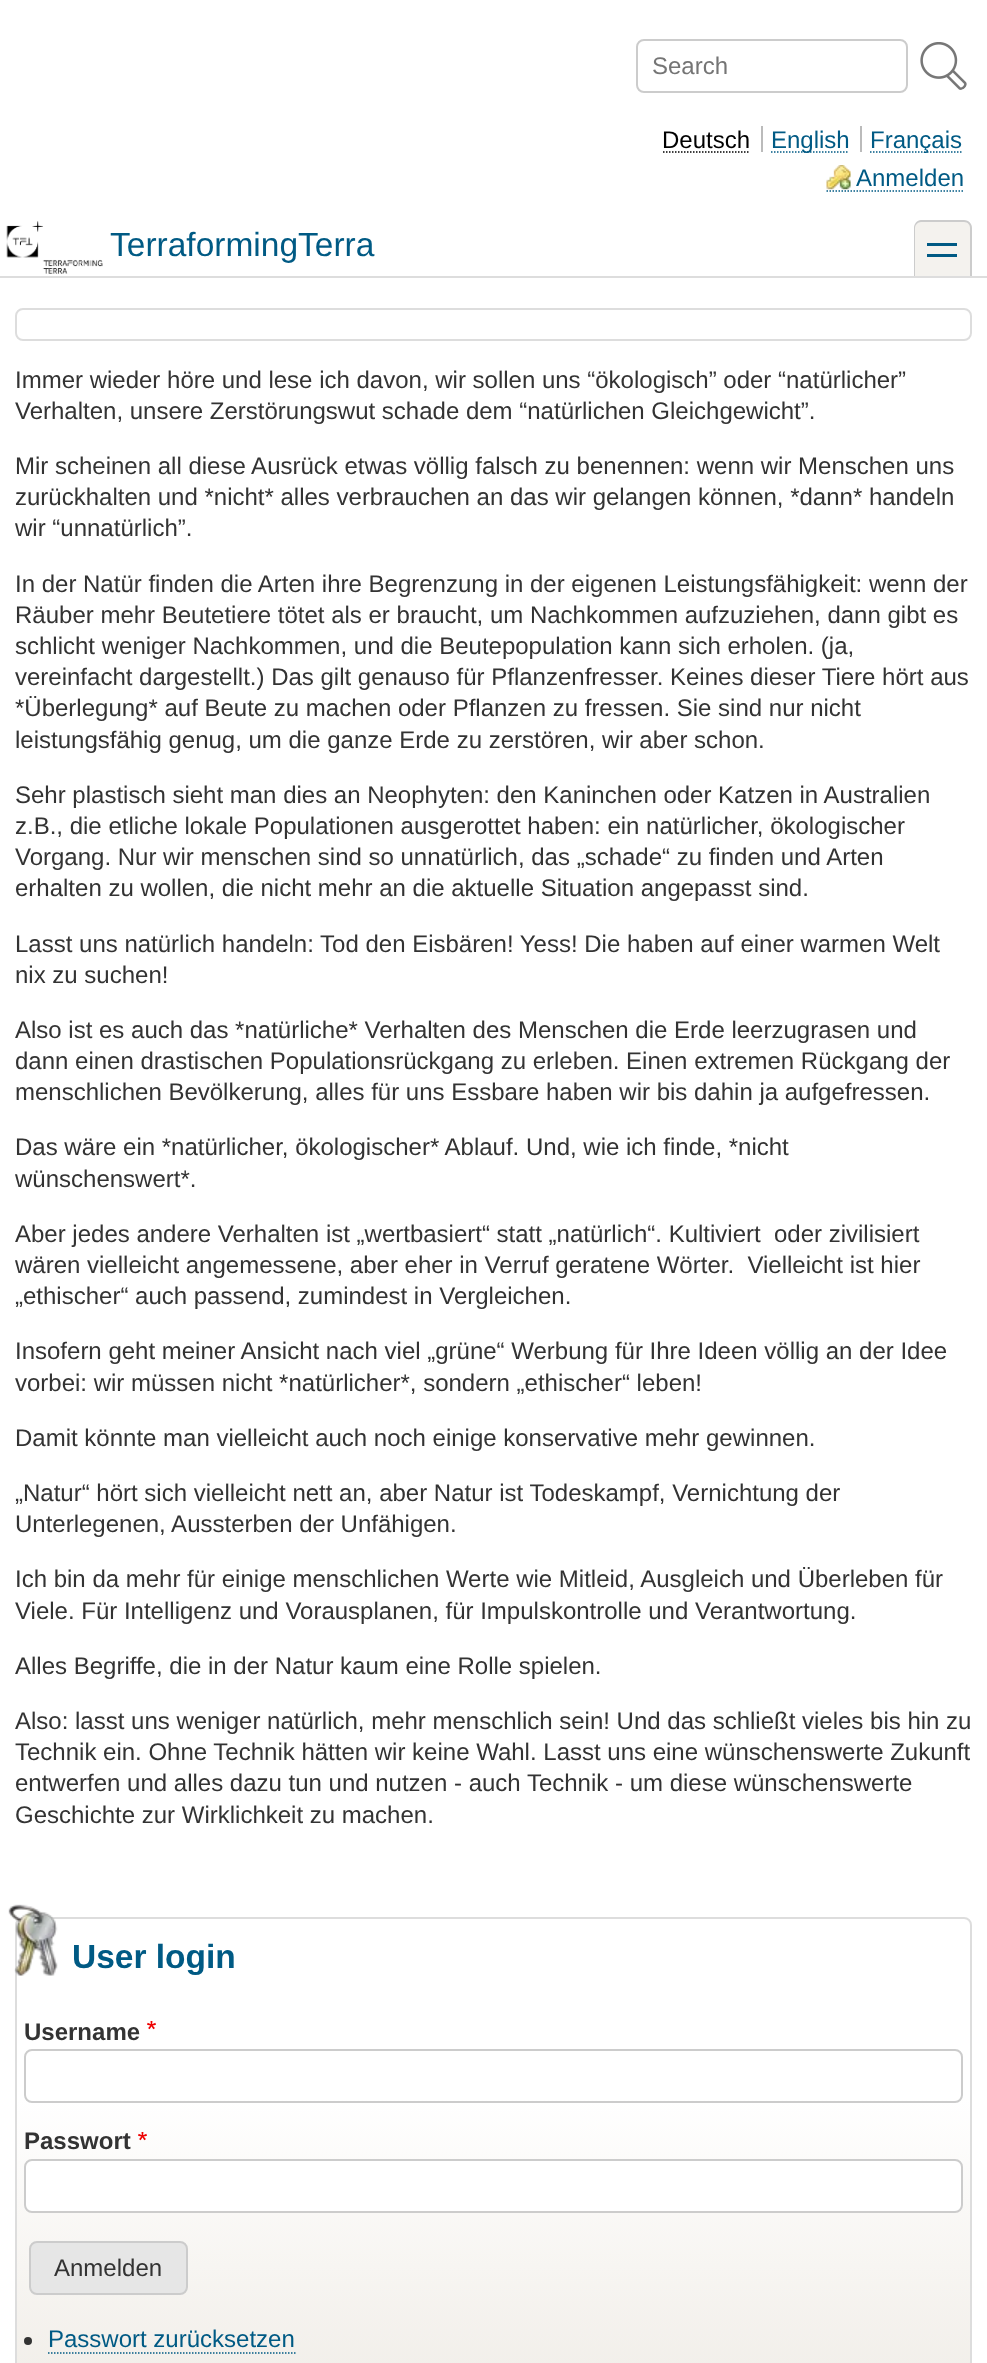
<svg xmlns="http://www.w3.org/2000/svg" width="987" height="2363">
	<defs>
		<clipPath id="clip1"><rect x="15" y="1917" width="957" height="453" rx="8" /></clipPath>
		<linearGradient id="g1" gradientUnits="userSpaceOnUse" x1="494" y1="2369" x2="494" y2="1919"><stop offset="0" stop-color="#F2EFEA" /><stop offset="0.6" stop-color="#FFFFFF" /></linearGradient>
	</defs>
	<rect width="100%" height="100%" fill="#FFFFFF" />
	<rect x="637" y="40" width="270" height="52" rx="7" fill="none" stroke="#CCCCCC" stroke-width="2" />
	<text x="652" y="74" font-family="Liberation Sans" font-size="24" fill="#757575">Search</text>
	<image x="920" y="42" width="47" height="48" href="assets/img1.png" />
	<text x="662" y="148" font-family="Liberation Sans" font-size="24" fill="#000000">Deutsch</text>
	<rect x="761" y="126" width="2" height="26" fill="#BBBBBB" />
	<path d="M663 152H750" fill="none" stroke="#000000" stroke-width="1.5" stroke-dasharray="1.5 1.5" />
	<path d="M771 152H849" fill="none" stroke="#005A84" stroke-width="1.5" stroke-dasharray="1.5 1.5" />
	<text x="771" y="148" font-family="Liberation Sans" font-size="24" fill="#005A84">English</text>
	<rect x="860" y="126" width="2" height="26" fill="#BBBBBB" />
	<path d="M870 152H963" fill="none" stroke="#005A84" stroke-width="1.5" stroke-dasharray="1.5 1.5" />
	<text x="870" y="148" font-family="Liberation Sans" font-size="24" fill="#005A84">Français</text>
	<image x="826" y="165" width="25" height="25" href="assets/img2.png" />
	<text x="856" y="186" font-family="Liberation Sans" font-size="24" fill="#005A84">Anmelden</text>
	<path d="M826.5 191H964.5" fill="none" stroke="#005A84" stroke-width="1.5" stroke-dasharray="1.5 1.5" />
	<rect x="0" y="276" width="987" height="2" fill="#DDDDDD" />
	<path d="M922 221H964C968.5 221 972 224.5 972 229V276H914V229C914 224.5 917.5 221 922 221Z" fill="#F4F2EE" />
	<path d="M921 220H964C969 220 972 224 972 228V276H914V228C914 224 917 220 921 220ZM921 222H964C968 222 970 225 970 228V276H915V228C915 225 918 222 921 222Z" fill="#CCCCCC" fill-rule="evenodd" />
	<rect x="927" y="243" width="30" height="3" fill="#005A84" />
	<rect x="927" y="254" width="30" height="3" fill="#005A84" />
	<image x="6" y="221" width="97" height="53" href="assets/img3.png" />
	<text x="110" y="256" font-family="Liberation Sans" font-size="33.5" fill="#005A84">TerraformingTerra</text>
	<rect x="16" y="309" width="955" height="31" rx="7" fill="none" stroke="#DDDDDD" stroke-width="2" />
	<g font-family="Liberation Sans" font-size="24" fill="#333333">
		<text x="15" y="388">Immer wieder höre und lese ich davon, wir sollen uns “ökologisch” oder “natürlicher”</text>
		<text x="15" y="419">Verhalten, unsere Zerstörungswut schade dem “natürlichen Gleichgewicht”.</text>
		<text x="15" y="474">Mir scheinen all diese Ausrück etwas völlig falsch zu benennen: wenn wir Menschen uns</text>
		<text x="15" y="505">zurückhalten und *nicht* alles verbrauchen an das wir gelangen können, *dann* handeln</text>
		<text x="15" y="536">wir “unnatürlich”.</text>
		<text x="15" y="592">In der Natür finden die Arten ihre Begrenzung in der eigenen Leistungsfähigkeit: wenn der</text>
		<text x="15" y="623">Räuber mehr Beutetiere tötet als er braucht, um Nachkommen aufzuziehen, dann gibt es</text>
		<text x="15" y="654">schlicht weniger Nachkommen, und die Beutepopulation kann sich erholen. (ja,</text>
		<text x="15" y="685">vereinfacht dargestellt.) Das gilt genauso für Pflanzenfresser. Keines dieser Tiere hört aus</text>
		<text x="15" y="716">*Überlegung* auf Beute zu machen oder Pflanzen zu fressen. Sie sind nur nicht</text>
		<text x="15" y="748">leistungsfähig genug, um die ganze Erde zu zerstören, wir aber schon.</text>
		<text x="15" y="803">Sehr plastisch sieht man dies an Neophyten: den Kaninchen oder Katzen in Australien</text>
		<text x="15" y="834">z.B., die etliche lokale Populationen ausgerottet haben: ein natürlicher, ökologischer</text>
		<text x="15" y="865">Vorgang. Nur wir menschen sind so unnatürlich, das „schade“ zu finden und Arten</text>
		<text x="15" y="896">erhalten zu wollen, die nicht mehr an die aktuelle Situation angepasst sind.</text>
		<text x="15" y="952">Lasst uns natürlich handeln: Tod den Eisbären! Yess! Die haben auf einer warmen Welt</text>
		<text x="15" y="983">nix zu suchen!</text>
		<text x="15" y="1038">Also ist es auch das *natürliche* Verhalten des Menschen die Erde leerzugrasen und</text>
		<text x="15" y="1069">dann einen drastischen Populationsrückgang zu erleben. Einen extremen Rückgang der</text>
		<text x="15" y="1100">menschlichen Bevölkerung, alles für uns Essbare haben wir bis dahin ja aufgefressen.</text>
		<text x="15" y="1155">Das wäre ein *natürlicher, ökologischer* Ablauf. Und, wie ich finde, *nicht</text>
		<text x="15" y="1187">wünschenswert*.</text>
		<text x="15" y="1242" xml:space="preserve">Aber jedes andere Verhalten ist „wertbasiert“ statt „natürlich“. Kultiviert  oder zivilisiert</text>
		<text x="15" y="1273" xml:space="preserve">wären vielleicht angemessene, aber eher in Verruf geratene Wörter.  Vielleicht ist hier</text>
		<text x="15" y="1304">„ethischer“ auch passend, zumindest in Vergleichen.</text>
		<text x="15" y="1359">Insofern geht meiner Ansicht nach viel „grüne“ Werbung für Ihre Ideen völlig an der Idee</text>
		<text x="15" y="1391">vorbei: wir müssen nicht *natürlicher*, sondern „ethischer“ leben!</text>
		<text x="15" y="1446">Damit könnte man vielleicht auch noch einige konservative mehr gewinnen.</text>
		<text x="15" y="1501">„Natur“ hört sich vielleicht nett an, aber Natur ist Todeskampf, Vernichtung der</text>
		<text x="15" y="1532">Unterlegenen, Aussterben der Unfähigen.</text>
		<text x="15" y="1587">Ich bin da mehr für einige menschlichen Werte wie Mitleid, Ausgleich und Überleben für</text>
		<text x="15" y="1619">Viele. Für Intelligenz und Vorausplanen, für Impulskontrolle und Verantwortung.</text>
		<text x="15" y="1674">Alles Begriffe, die in der Natur kaum eine Rolle spielen.</text>
		<text x="15" y="1729">Also: lasst uns weniger natürlich, mehr menschlich sein! Und das schließt vieles bis hin zu</text>
		<text x="15" y="1760">Technik ein. Ohne Technik hätten wir keine Wahl. Lasst uns eine wünschenswerte Zukunft</text>
		<text x="15" y="1791">entwerfen und alles dazu tun und nutzen - auch Technik - um diese wünschenswerte</text>
		<text x="15" y="1823">Geschichte zur Wirklichkeit zu machen.</text>
	</g>
	<g clip-path="url(#clip1)">
		<rect x="15" y="1919" width="957" height="444" fill="url(#g1)" />
	</g>
	<rect x="16" y="1918" width="955" height="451" rx="7" fill="none" stroke="#DDDDDD" stroke-width="2" />
	<image x="8" y="1904" width="50" height="72" href="assets/img4.png" />
	<text x="72" y="1968" font-family="Liberation Sans" font-size="33.5" font-weight="700" fill="#005A84">User login</text>
	<text x="24" y="2040" font-family="Liberation Sans" font-size="24" font-weight="700" fill="#333333">Username</text>
	<image x="147" y="2021" width="9" height="9" href="assets/img5.png" />
	<rect x="25" y="2050" width="937" height="52" rx="7" fill="none" stroke="#CCCCCC" stroke-width="2" />
	<text x="24" y="2149" font-family="Liberation Sans" font-size="24" font-weight="700" fill="#333333">Passwort</text>
	<image x="138" y="2132" width="9" height="9" href="assets/img6.png" />
	<rect x="25" y="2160" width="937" height="52" rx="7" fill="#FFFFFF" stroke="#CCCCCC" stroke-width="2" />
	<rect x="30" y="2242" width="157" height="52" rx="7" fill="#E6E6E6" stroke="#CCCCCC" stroke-width="2" />
	<text x="54" y="2276" font-family="Liberation Sans" font-size="24" fill="#333333">Anmelden</text>
	<circle cx="28" cy="2341" r="4" fill="#333333" />
	<text x="48" y="2347" font-family="Liberation Sans" font-size="24" fill="#005A84">Passwort zurücksetzen</text>
	<path d="M48 2353H295.5" fill="none" stroke="#005A84" stroke-width="1.5" stroke-dasharray="1.5 1.5" />
</svg>
